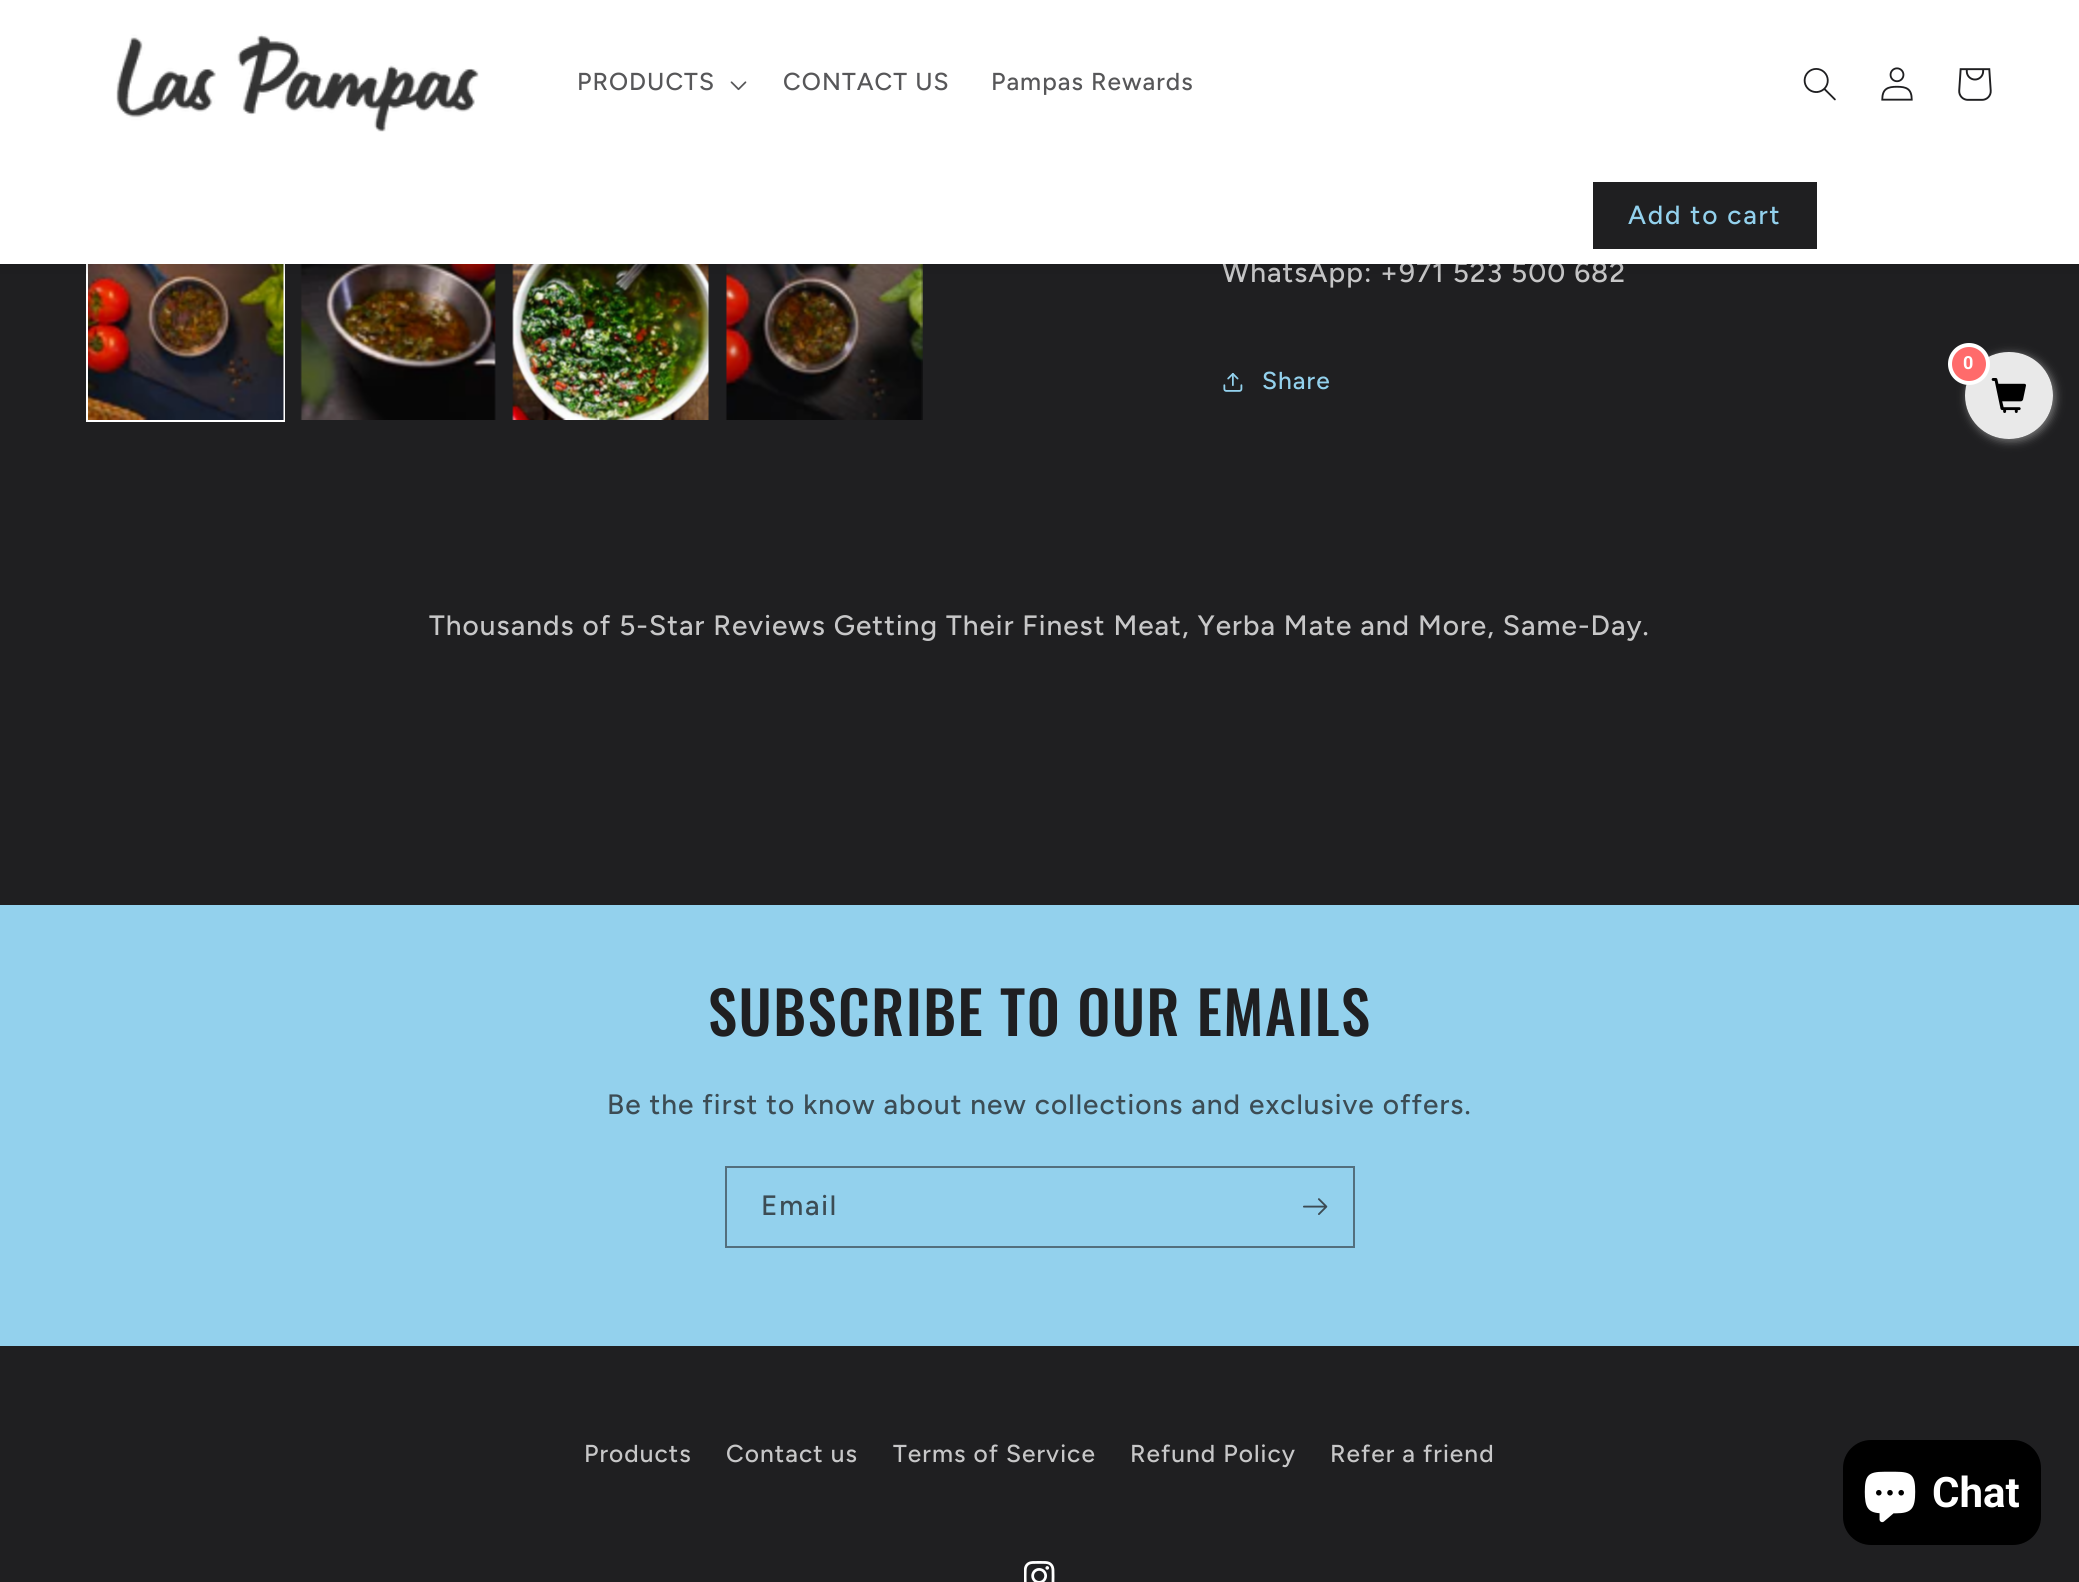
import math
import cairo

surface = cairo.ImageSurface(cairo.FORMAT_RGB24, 2079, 1582)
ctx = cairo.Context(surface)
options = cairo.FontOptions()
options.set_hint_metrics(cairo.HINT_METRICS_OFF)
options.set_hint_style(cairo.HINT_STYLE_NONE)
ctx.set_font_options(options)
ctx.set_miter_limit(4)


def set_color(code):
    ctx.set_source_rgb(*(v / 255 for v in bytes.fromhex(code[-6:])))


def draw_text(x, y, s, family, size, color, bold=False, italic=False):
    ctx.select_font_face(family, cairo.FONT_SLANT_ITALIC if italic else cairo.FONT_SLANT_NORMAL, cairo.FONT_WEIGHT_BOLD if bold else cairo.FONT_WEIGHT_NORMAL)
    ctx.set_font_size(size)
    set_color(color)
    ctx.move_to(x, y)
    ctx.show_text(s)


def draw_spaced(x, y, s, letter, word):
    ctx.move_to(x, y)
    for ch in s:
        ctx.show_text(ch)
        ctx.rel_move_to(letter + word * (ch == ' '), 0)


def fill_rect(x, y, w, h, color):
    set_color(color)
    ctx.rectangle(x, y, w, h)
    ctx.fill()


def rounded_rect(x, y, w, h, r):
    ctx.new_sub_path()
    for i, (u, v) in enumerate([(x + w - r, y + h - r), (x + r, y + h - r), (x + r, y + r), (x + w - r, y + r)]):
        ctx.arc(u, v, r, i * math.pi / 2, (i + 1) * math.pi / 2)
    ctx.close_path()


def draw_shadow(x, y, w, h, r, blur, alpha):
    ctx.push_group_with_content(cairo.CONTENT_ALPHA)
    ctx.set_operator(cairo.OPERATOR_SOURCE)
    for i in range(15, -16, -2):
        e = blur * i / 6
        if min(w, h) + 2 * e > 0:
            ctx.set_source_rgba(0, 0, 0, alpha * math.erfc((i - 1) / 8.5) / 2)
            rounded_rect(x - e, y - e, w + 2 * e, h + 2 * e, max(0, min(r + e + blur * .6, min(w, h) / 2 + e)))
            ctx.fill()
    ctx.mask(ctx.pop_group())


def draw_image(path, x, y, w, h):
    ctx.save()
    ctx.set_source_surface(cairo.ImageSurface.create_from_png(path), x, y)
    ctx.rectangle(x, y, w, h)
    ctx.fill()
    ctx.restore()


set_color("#1f1f21")
ctx.paint()
ctx.rectangle(87, 223, 197, 198)
set_color("#ffffff")
ctx.stroke()
ctx.select_font_face("Figtree Medium")
ctx.set_font_size(28)
set_color("#c7c7c8")
draw_spaced(1222, 282, "WhatsApp: +971 523 500 682", 1.05, 0)
fill_rect(0, 0, 2079, 264, "#ffffff")
draw_image("assets/img1.png", 116, 34, 363, 98)
ctx.set_font_size(24.5)
set_color("#575759")
draw_spaced(577, 90, "PRODUCTS", 1.05, 0)
draw_image("assets/img2.png", 730, 81, 17, 10)
draw_spaced(783, 90, "CONTACT US", 1.05, 0)
draw_spaced(991, 90, "Pampas Rewards", 1.05, 0)
draw_image("assets/img3.png", 1803, 68, 33, 33)
draw_image("assets/img4.png", 1881, 67, 32, 34)
draw_image("assets/img5.png", 1958, 68, 34, 33)
fill_rect(1593, 182, 224, 67, "#1f1f21")
ctx.set_font_size(26.25)
set_color("#93d1ed")
draw_spaced(1628, 224, "Add to cart", 1.75, 0)
draw_image("assets/img6.png", 88, 264, 196, 156)
draw_image("assets/img7.png", 300, 264, 196, 156)
draw_image("assets/img8.png", 512, 264, 198, 156)
draw_image("assets/img9.png", 725, 264, 198, 156)
gradient = cairo.LinearGradient(1040, 264, 1040, 277)
gradient.add_color_stop_rgba(0, 0, 0, 0, 0.09)
gradient.add_color_stop_rgba(1, 0, 0, 0, 0)
ctx.set_source(gradient)
ctx.rectangle(0, 264, 2079, 10)
ctx.fill()
draw_image("assets/img10.png", 1223, 373, 20, 19)
ctx.set_font_size(24.5)
set_color("#93d1ed")
draw_spaced(1262, 389, "Share", 1.05, 0)
ctx.set_font_size(28)
set_color("#c7c7c8")
draw_spaced(429, 635, "Thousands of 5-Star Reviews Getting Their Finest Meat, Yerba Mate and More, Same-Day.", 1.05, 0)
ctx.save()
ctx.set_fill_rule(cairo.FILL_RULE_EVEN_ODD)
ctx.new_path()
ctx.move_to(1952, 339)
ctx.line_to(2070, 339)
ctx.line_to(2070, 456)
ctx.line_to(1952, 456)
ctx.close_path()
ctx.move_to(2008.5, 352)
ctx.line_to(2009.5, 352)
ctx.curve_to(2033.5, 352, 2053, 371.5, 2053, 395.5)
ctx.curve_to(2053, 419.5, 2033.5, 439, 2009.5, 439)
ctx.line_to(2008.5, 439)
ctx.curve_to(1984.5, 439, 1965, 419.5, 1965, 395.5)
ctx.curve_to(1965, 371.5, 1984.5, 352, 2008.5, 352)
ctx.close_path()
ctx.clip()
set_color("#808080")
draw_shadow(1967, 354, 88, 87, 43.5, 4.5, 1)
ctx.restore()
ctx.set_source_rgba(1, 1, 1, 0.9)
rounded_rect(1965, 352, 88, 87, 43.5)
ctx.fill()
set_color("#ff6b6b")
ctx.arc(1969, 364, 19, 0, 2 * math.pi)
ctx.fill_preserve()
set_color("#ffffff")
ctx.set_line_width(4)
ctx.stroke()
ctx.select_font_face("Roboto", cairo.FONT_SLANT_NORMAL, cairo.FONT_WEIGHT_BOLD)
ctx.set_font_size(18)
draw_spaced(1963, 369, "0", 1.05, 0)
draw_image("assets/img11.png", 1991, 378, 35, 35)
fill_rect(0, 905, 2079, 441, "#93d1ed")
ctx.select_font_face("Oswald Medium")
ctx.set_font_size(58.75)
set_color("#1f1f21")
draw_spaced(708, 1036, "SUBSCRIBE TO OUR EMAILS", 1.5, 0)
ctx.select_font_face("Figtree Medium")
ctx.set_font_size(28)
set_color("#3c4c54")
draw_spaced(607, 1114, "Be the first to know about new collections and exclusive offers.", 1.05, 0)
ctx.rectangle(726, 1167, 628, 80)
set_color("#536f7d")
ctx.set_line_width(2)
ctx.stroke()
set_color("#3c4c54")
draw_spaced(761, 1215, "Email", 1.75, 0)
draw_image("assets/img12.png", 1303, 1198, 25, 17)
ctx.set_font_size(24.5)
set_color("#c7c7c8")
draw_spaced(584, 1462, "Products", 1.05, 0)
draw_spaced(726, 1462, "Contact us", 1.05, 0)
draw_spaced(893, 1462, "Terms of Service", 1.05, 0)
draw_spaced(1130, 1462, "Refund Policy", 1.05, 0)
draw_spaced(1330, 1462, "Refer a friend", 1.05, 0)
draw_image("assets/img13.png", 1024, 1561, 31, 21)
set_color("#000000")
rounded_rect(1843, 1440, 198, 105, 28)
ctx.fill()
draw_image("assets/img14.png", 1864, 1471, 52, 52)
draw_text(1932, 1507, "Chat", "Roboto", 42, "#ffffff", bold=True)
surface.write_to_png("output.png")
